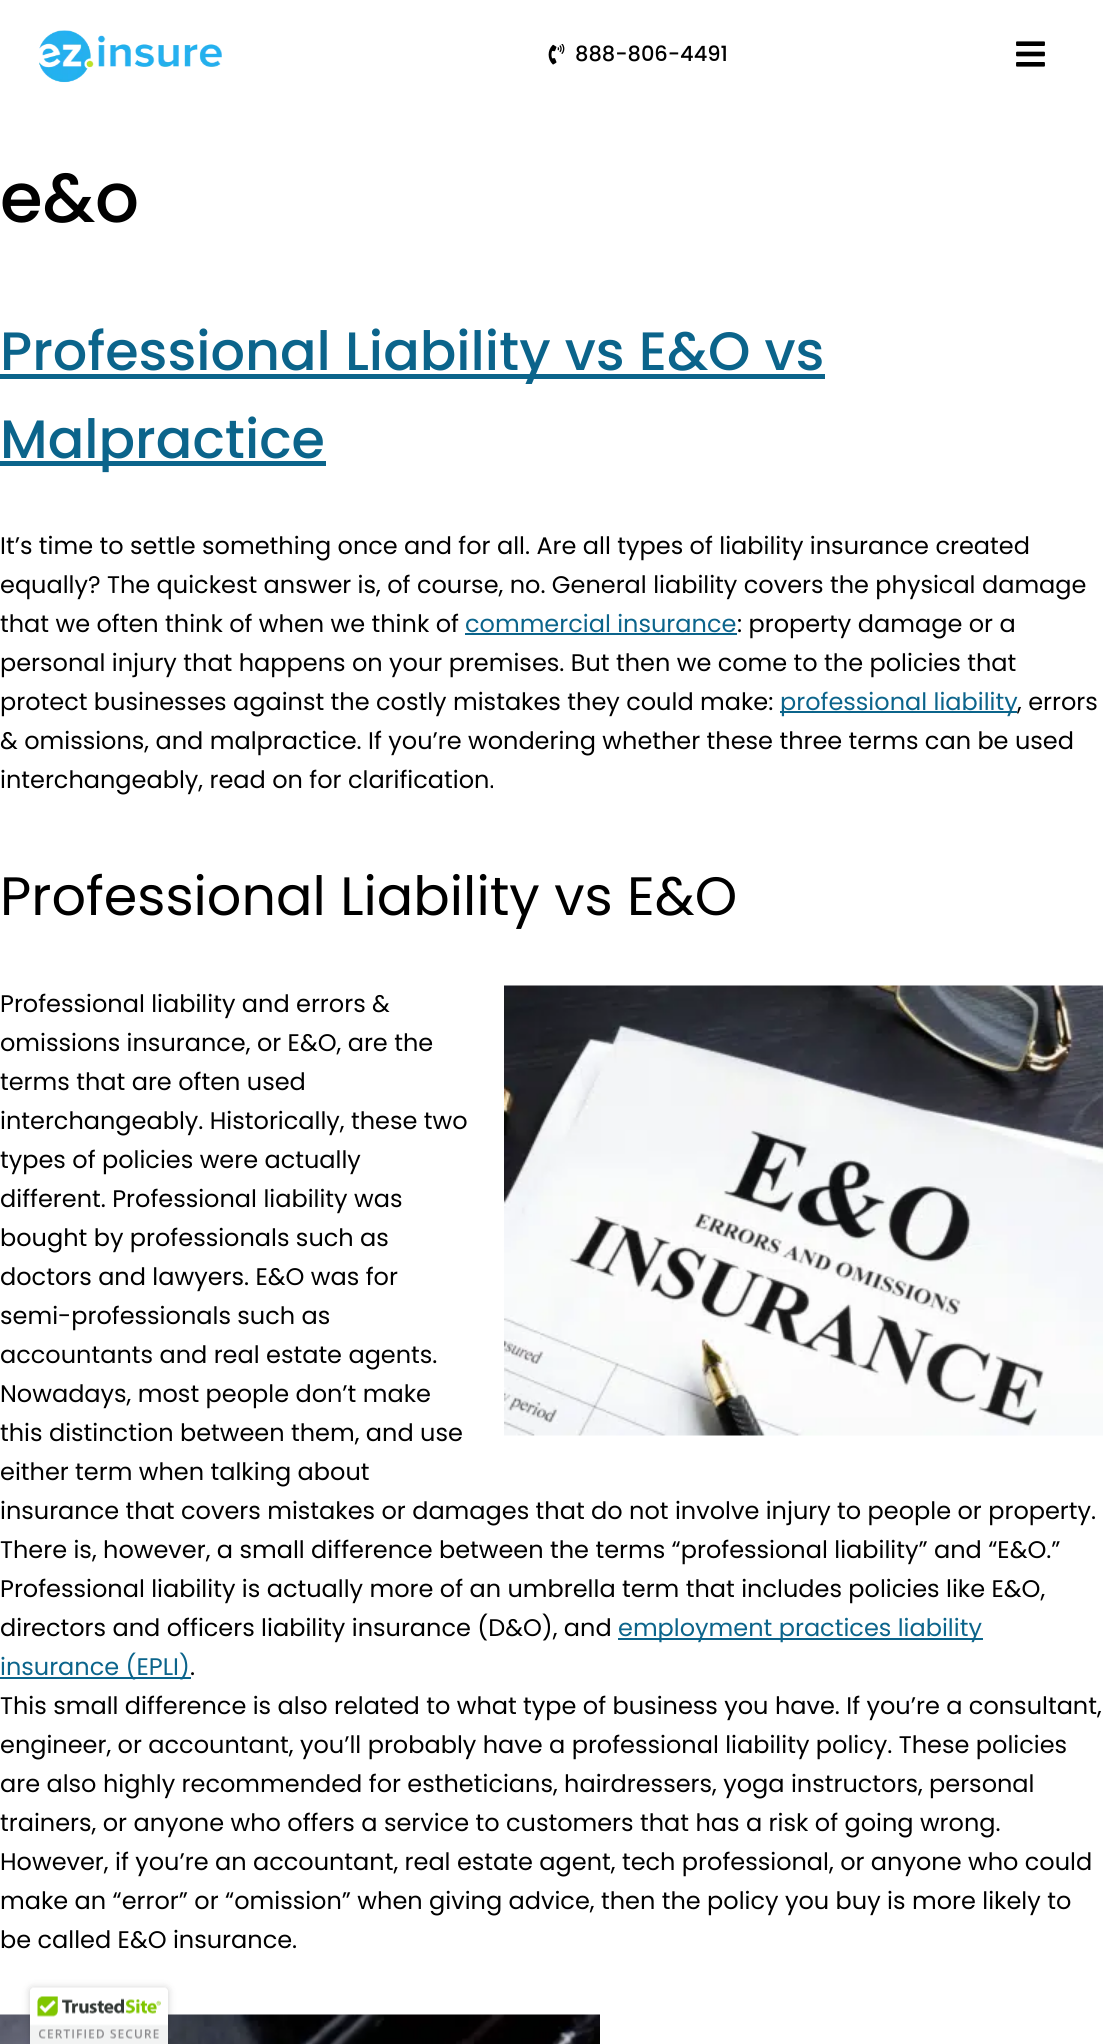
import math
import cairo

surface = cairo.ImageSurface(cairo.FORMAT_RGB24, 1103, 2044)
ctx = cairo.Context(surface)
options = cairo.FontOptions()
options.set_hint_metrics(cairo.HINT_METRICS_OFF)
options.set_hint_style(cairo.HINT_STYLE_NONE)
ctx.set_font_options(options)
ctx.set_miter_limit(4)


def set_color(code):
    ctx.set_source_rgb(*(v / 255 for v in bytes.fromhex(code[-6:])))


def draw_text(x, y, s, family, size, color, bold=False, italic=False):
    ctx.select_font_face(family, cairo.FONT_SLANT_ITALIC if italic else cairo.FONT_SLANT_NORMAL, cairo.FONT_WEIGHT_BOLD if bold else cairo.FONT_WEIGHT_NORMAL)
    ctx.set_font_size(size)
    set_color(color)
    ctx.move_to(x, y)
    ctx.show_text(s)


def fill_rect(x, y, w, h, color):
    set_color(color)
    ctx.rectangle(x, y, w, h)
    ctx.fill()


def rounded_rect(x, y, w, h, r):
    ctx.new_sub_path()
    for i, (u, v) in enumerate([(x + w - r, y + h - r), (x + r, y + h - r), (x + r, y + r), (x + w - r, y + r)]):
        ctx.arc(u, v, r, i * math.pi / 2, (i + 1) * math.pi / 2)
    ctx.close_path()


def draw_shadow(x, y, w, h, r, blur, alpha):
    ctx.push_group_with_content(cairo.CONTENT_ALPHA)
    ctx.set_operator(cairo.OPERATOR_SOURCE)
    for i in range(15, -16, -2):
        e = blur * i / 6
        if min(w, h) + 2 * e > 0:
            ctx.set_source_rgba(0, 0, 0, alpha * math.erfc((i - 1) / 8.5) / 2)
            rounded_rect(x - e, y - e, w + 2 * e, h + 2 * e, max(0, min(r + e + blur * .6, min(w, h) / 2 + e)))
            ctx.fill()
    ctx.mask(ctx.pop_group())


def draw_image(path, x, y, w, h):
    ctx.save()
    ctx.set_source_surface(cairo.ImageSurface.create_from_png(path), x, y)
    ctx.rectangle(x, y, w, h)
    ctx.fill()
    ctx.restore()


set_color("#ffffff")
ctx.paint()
draw_image("assets/img1.png", 39, 30, 183, 53)
draw_image("assets/img2.png", 548, 44, 17, 21)
draw_text(575, 61, "888-806-4491", "Poppins Medium", 21, "#000000")
draw_image("assets/img3.png", 1016, 41, 29, 26)
draw_text(0, 222, "e&o", "Poppins Medium", 69, "#000000")
fill_rect(0, 374, 825, 5, "#0b648b")
draw_text(0, 370, "Professional Liability vs E&O vs", "Poppins Medium", 54, "#0b648b")
fill_rect(0, 461, 326, 5, "#0b648b")
draw_text(0, 458, "Malpractice", "Poppins Medium", 54, "#0b648b")
draw_text(0, 554, "It’s time to settle something once and for all. Are all types of liability insurance created", "Poppins", 24, "#000000")
draw_text(0, 593, "equally? The quickest answer is, of course, no. General liability covers the physical damage", "Poppins", 24, "#000000")
draw_text(0, 632, "that we often think of when we think of", "Poppins", 24, "#000000")
draw_text(465, 632, "commercial insurance", "Poppins", 24, "#0b648b")
fill_rect(465, 633, 272, 2, "#0b648b")
draw_text(737, 632, ": property damage or a", "Poppins", 24, "#000000")
draw_text(0, 671, "personal injury that happens on your premises. But then we come to the policies that", "Poppins", 24, "#000000")
draw_text(0, 710, "protect businesses against the costly mistakes they could make:", "Poppins", 24, "#000000")
fill_rect(780, 711, 237, 2, "#0b648b")
draw_text(780, 710, "professional liability", "Poppins", 24, "#0b648b")
draw_text(1017, 710, ", errors", "Poppins", 24, "#000000")
draw_text(0, 749, "& omissions, and malpractice. If you’re wondering whether these three terms can be used", "Poppins", 24, "#000000")
draw_text(0, 788, "interchangeably, read on for clarification.", "Poppins", 24, "#000000")
draw_text(0, 915, "Professional Liability vs E&O", "Poppins", 54, "#000000")
draw_image("assets/img4.png", 504, 985, 599, 451)
draw_text(0, 1012, "Professional liability and errors &", "Poppins", 24, "#000000")
draw_text(0, 1051, "omissions insurance, or E&O, are the", "Poppins", 24, "#000000")
draw_text(0, 1090, "terms that are often used", "Poppins", 24, "#000000")
draw_text(0, 1129, "interchangeably. Historically, these two", "Poppins", 24, "#000000")
draw_text(0, 1168, "types of policies were actually", "Poppins", 24, "#000000")
draw_text(0, 1207, "different. Professional liability was", "Poppins", 24, "#000000")
draw_text(0, 1246, "bought by professionals such as", "Poppins", 24, "#000000")
draw_text(0, 1285, "doctors and lawyers. E&O was for", "Poppins", 24, "#000000")
draw_text(0, 1324, "semi-professionals such as", "Poppins", 24, "#000000")
draw_text(0, 1363, "accountants and real estate agents.", "Poppins", 24, "#000000")
draw_text(0, 1402, "Nowadays, most people don’t make", "Poppins", 24, "#000000")
draw_text(0, 1441, "this distinction between them, and use", "Poppins", 24, "#000000")
draw_text(0, 1480, "either term when talking about", "Poppins", 24, "#000000")
draw_text(0, 1519, "insurance that covers mistakes or damages that do not involve injury to people or property.", "Poppins", 24, "#000000")
draw_text(0, 1558, "There is, however, a small difference between the terms “professional liability” and “E&O.”", "Poppins", 24, "#000000")
draw_text(0, 1597, "Professional liability is actually more of an umbrella term that includes policies like E&O,", "Poppins", 24, "#000000")
draw_text(0, 1636, "directors and officers liability insurance (D&O), and", "Poppins", 24, "#000000")
fill_rect(618, 1638, 365, 2, "#0b648b")
draw_text(618, 1636, "employment practices liability", "Poppins", 24, "#0b648b")
fill_rect(0, 1677, 191, 2, "#0b648b")
draw_text(0, 1675, "insurance (EPLI)", "Poppins", 24, "#0b648b")
draw_text(190, 1675, ".", "Poppins", 24, "#000000")
draw_text(0, 1714, "This small difference is also related to what type of business you have. If you’re a consultant,", "Poppins", 24, "#000000")
draw_text(0, 1753, "engineer, or accountant, you’ll probably have a professional liability policy. These policies", "Poppins", 24, "#000000")
draw_text(0, 1792, "are also highly recommended for estheticians, hairdressers, yoga instructors, personal", "Poppins", 24, "#000000")
draw_text(0, 1831, "trainers, or anyone who offers a service to customers that has a risk of going wrong.", "Poppins", 24, "#000000")
draw_text(0, 1870, "However, if you’re an accountant, real estate agent, tech professional, or anyone who could", "Poppins", 24, "#000000")
draw_text(0, 1909, "make an “error” or “omission” when giving advice, then the policy you buy is more likely to", "Poppins", 24, "#000000")
draw_text(0, 1948, "be called E&O insurance.", "Poppins", 24, "#000000")
draw_image("assets/img5.png", 0, 2014, 600, 30)
set_color("#000000")
draw_shadow(30, 1988, 138, 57, 3, 4, 0.2)
draw_image("assets/img6.png", 30, 1987, 138, 57)
surface.write_to_png("output.png")
